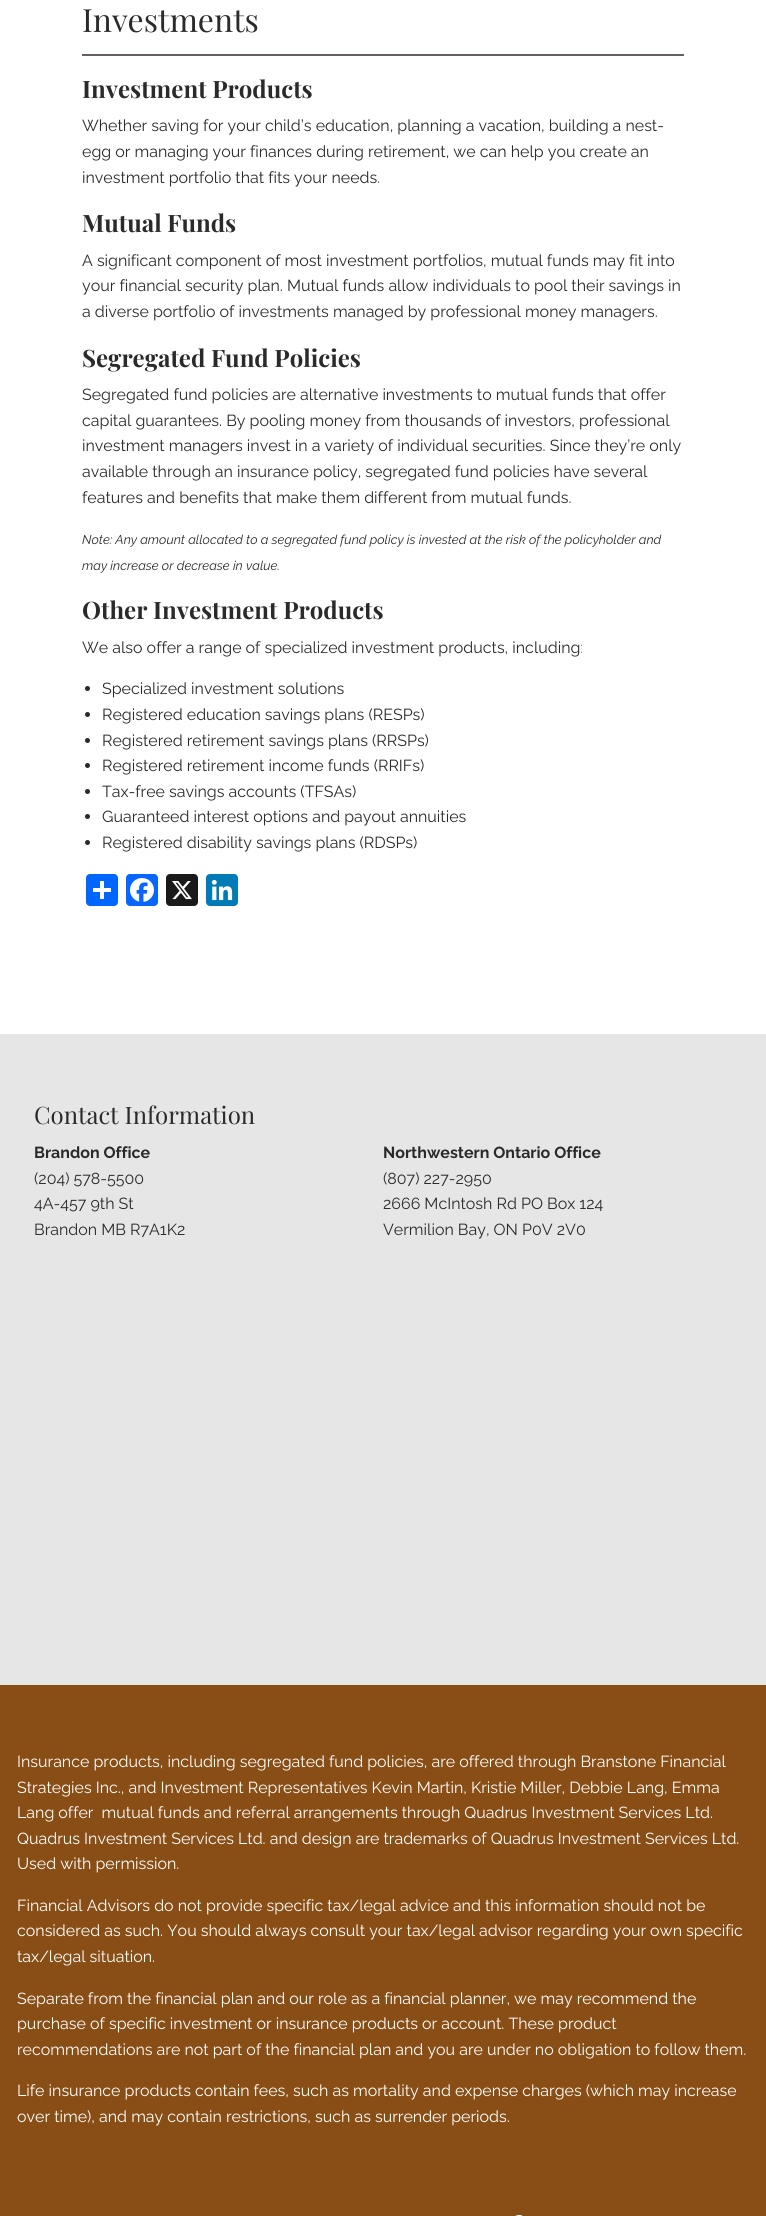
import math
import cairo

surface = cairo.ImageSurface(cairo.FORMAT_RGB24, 766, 2216)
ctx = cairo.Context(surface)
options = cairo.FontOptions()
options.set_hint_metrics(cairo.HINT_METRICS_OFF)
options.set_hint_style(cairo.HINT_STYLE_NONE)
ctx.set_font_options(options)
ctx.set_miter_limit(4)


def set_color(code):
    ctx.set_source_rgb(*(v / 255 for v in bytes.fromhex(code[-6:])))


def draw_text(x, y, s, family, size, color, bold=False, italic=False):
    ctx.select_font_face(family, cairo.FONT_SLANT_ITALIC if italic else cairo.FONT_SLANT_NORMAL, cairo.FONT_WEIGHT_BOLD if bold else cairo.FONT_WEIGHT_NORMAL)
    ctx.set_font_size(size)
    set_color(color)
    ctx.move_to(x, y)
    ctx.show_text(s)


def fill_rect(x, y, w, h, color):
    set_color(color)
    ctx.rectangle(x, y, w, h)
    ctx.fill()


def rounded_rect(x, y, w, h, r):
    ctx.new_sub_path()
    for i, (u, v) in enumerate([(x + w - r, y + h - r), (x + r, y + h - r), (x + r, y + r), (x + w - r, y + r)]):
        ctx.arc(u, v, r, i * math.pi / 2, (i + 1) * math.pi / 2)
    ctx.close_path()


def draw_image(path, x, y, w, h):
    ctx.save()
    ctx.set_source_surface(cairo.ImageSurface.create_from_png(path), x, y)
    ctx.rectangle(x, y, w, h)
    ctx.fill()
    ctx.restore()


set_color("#ffffff")
ctx.paint()
fill_rect(82, 54, 602, 2, "#666064")
draw_text(82, 32, "Investments", "Playfair Display", 32, "#2a2a2a")
draw_text(82, 98, "Investment Products", "Playfair Display", 24, "#2a2a2a", bold=True)
draw_text(82, 131, "Whether saving for your child’s education, planning a vacation, building a nest-", "Raleway Thin", 16, "#2a2a2a")
draw_text(82, 157, "egg or managing your finances during retirement, we can help you create an", "Raleway Thin", 16, "#2a2a2a")
draw_text(82, 183, "investment portfolio that fits your needs.", "Raleway Thin", 16, "#2a2a2a")
draw_text(82, 232, "Mutual Funds", "Playfair Display", 24, "#2a2a2a", bold=True)
draw_text(82, 266, "A significant component of most investment portfolios, mutual funds may fit into", "Raleway Thin", 16, "#2a2a2a")
draw_text(82, 291, "your financial security plan. Mutual funds allow individuals to pool their savings in", "Raleway Thin", 16, "#2a2a2a")
draw_text(82, 317, "a diverse portfolio of investments managed by professional money managers.", "Raleway Thin", 16, "#2a2a2a")
draw_text(82, 367, "Segregated Fund Policies", "Playfair Display", 24, "#2a2a2a", bold=True)
draw_text(82, 400, "Segregated fund policies are alternative investments to mutual funds that offer", "Raleway Thin", 16, "#2a2a2a")
draw_text(82, 426, "capital guarantees. By pooling money from thousands of investors, professional", "Raleway Thin", 16, "#2a2a2a")
draw_text(82, 451, "investment managers invest in a variety of individual securities. Since they’re only", "Raleway Thin", 16, "#2a2a2a")
draw_text(82, 477, "available through an insurance policy, segregated fund policies have several", "Raleway Thin", 16, "#2a2a2a")
draw_text(82, 503, "features and benefits that make them different from mutual funds.", "Raleway Thin", 16, "#2a2a2a")
draw_text(82, 544, "Note: Any amount allocated to a segregated fund policy is invested at the risk of the policyholder and", "Raleway Thin", 12.8, "#2a2a2a", italic=True)
draw_text(82, 570, "may increase or decrease in value.", "Raleway Thin", 12.8, "#2a2a2a", italic=True)
draw_text(82, 619, "Other Investment Products", "Playfair Display", 24, "#2a2a2a", bold=True)
draw_text(82, 653, "We also offer a range of specialized investment products, including:", "Raleway Thin", 16, "#2a2a2a")
ctx.new_path()
ctx.arc(87.5, 688.5, 2.5, 0, 2 * math.pi)
ctx.fill()
draw_text(102, 694, "Specialized investment solutions", "Raleway Thin", 16, "#2a2a2a")
ctx.new_path()
ctx.arc(87.5, 714.5, 2.5, 0, 2 * math.pi)
ctx.fill()
draw_text(102, 720, "Registered education savings plans (RESPs)", "Raleway Thin", 16, "#2a2a2a")
ctx.new_path()
ctx.arc(87.5, 740.5, 2.5, 0, 2 * math.pi)
ctx.fill()
draw_text(102, 746, "Registered retirement savings plans (RRSPs)", "Raleway Thin", 16, "#2a2a2a")
ctx.new_path()
ctx.arc(87.5, 765.5, 2.5, 0, 2 * math.pi)
ctx.fill()
draw_text(102, 771, "Registered retirement income funds (RRIFs)", "Raleway Thin", 16, "#2a2a2a")
ctx.new_path()
ctx.arc(87.5, 791.5, 2.5, 0, 2 * math.pi)
ctx.fill()
draw_text(102, 797, "Tax-free savings accounts (TFSAs)", "Raleway Thin", 16, "#2a2a2a")
ctx.new_path()
ctx.arc(87.5, 816.5, 2.5, 0, 2 * math.pi)
ctx.fill()
draw_text(102, 822, "Guaranteed interest options and payout annuities", "Raleway Thin", 16, "#2a2a2a")
ctx.new_path()
ctx.arc(87.5, 842.5, 2.5, 0, 2 * math.pi)
ctx.fill()
draw_text(102, 848, "Registered disability savings plans (RDSPs)", "Raleway Thin", 16, "#2a2a2a")
set_color("#0166ff")
rounded_rect(86, 874, 32, 32, 4)
ctx.fill()
fill_rect(100, 881, 4, 18, "#ffffff")
fill_rect(93, 888, 18, 4, "#ffffff")
set_color("#0866ff")
rounded_rect(126, 874, 32, 32, 4)
ctx.fill()
draw_image("assets/img1.png", 130, 878, 24, 24)
set_color("#1a1a1a")
rounded_rect(166, 874, 32, 32, 4)
ctx.fill()
draw_image("assets/img2.png", 172, 881, 20, 19)
set_color("#007bb5")
rounded_rect(206, 874, 32, 32, 4)
ctx.fill()
draw_image("assets/img3.png", 211, 879, 22, 22)
fill_rect(0, 1034, 766, 651, "#e6e6e6")
draw_text(34, 1124, "Contact Information", "Playfair Display", 24, "#2a2a2a")
draw_text(34, 1158, "Brandon Office", "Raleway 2 Thin", 16, "#2a2a2a")
draw_text(34, 1184, "(204) 578-5500", "Raleway Thin", 16, "#2a2a2a")
draw_text(34, 1209, "4A-457 9th St", "Raleway Thin", 16, "#2a2a2a")
draw_text(34, 1235, "Brandon MB R7A1K2", "Raleway Thin", 16, "#2a2a2a")
draw_text(383, 1158, "Northwestern Ontario Office", "Raleway 2 Thin", 16, "#2a2a2a")
draw_text(383, 1184, "(807) 227-2950", "Raleway Thin", 16, "#2a2a2a")
draw_text(383, 1209, "2666 McIntosh Rd PO Box 124", "Raleway Thin", 16, "#2a2a2a")
draw_text(383, 1235, "Vermilion Bay, ON P0V 2V0", "Raleway Thin", 16, "#2a2a2a")
fill_rect(0, 1685, 766, 531, "#884e16")
draw_text(17, 1767, "Insurance products, including segregated fund policies, are offered through Branstone Financial", "Raleway Thin", 16, "#ffffff")
draw_text(17, 1793, "Strategies Inc., and Investment Representatives Kevin Martin, Kristie Miller, Debbie Lang, Emma", "Raleway Thin", 16, "#ffffff")
draw_text(17, 1818, "Lang offer  mutual funds and referral arrangements through Quadrus Investment Services Ltd.", "Raleway Thin", 16, "#ffffff")
draw_text(17, 1844, "Quadrus Investment Services Ltd. and design are trademarks of Quadrus Investment Services Ltd.", "Raleway Thin", 16, "#ffffff")
draw_text(17, 1869, "Used with permission.", "Raleway Thin", 16, "#ffffff")
draw_text(17, 1911, "Financial Advisors do not provide specific tax/legal advice and this information should not be", "Raleway Thin", 16, "#ffffff")
draw_text(17, 1936, "considered as such. You should always consult your tax/legal advisor regarding your own specific", "Raleway Thin", 16, "#ffffff")
draw_text(17, 1962, "tax/legal situation.", "Raleway Thin", 16, "#ffffff")
draw_text(17, 2004, "Separate from the financial plan and our role as a financial planner, we may recommend the", "Raleway Thin", 16, "#ffffff")
draw_text(17, 2029, "purchase of specific investment or insurance products or account. These product", "Raleway Thin", 16, "#ffffff")
draw_text(17, 2055, "recommendations are not part of the financial plan and you are under no obligation to follow them.", "Raleway Thin", 16, "#ffffff")
draw_text(17, 2096, "Life insurance products contain fees, such as mortality and expense charges (which may increase", "Raleway Thin", 16, "#ffffff")
draw_text(17, 2122, "over time), and may contain restrictions, such as surrender periods.", "Raleway Thin", 16, "#ffffff")
draw_image("assets/img4.png", 515, 2215, 8, 1)
surface.write_to_png("output.png")
